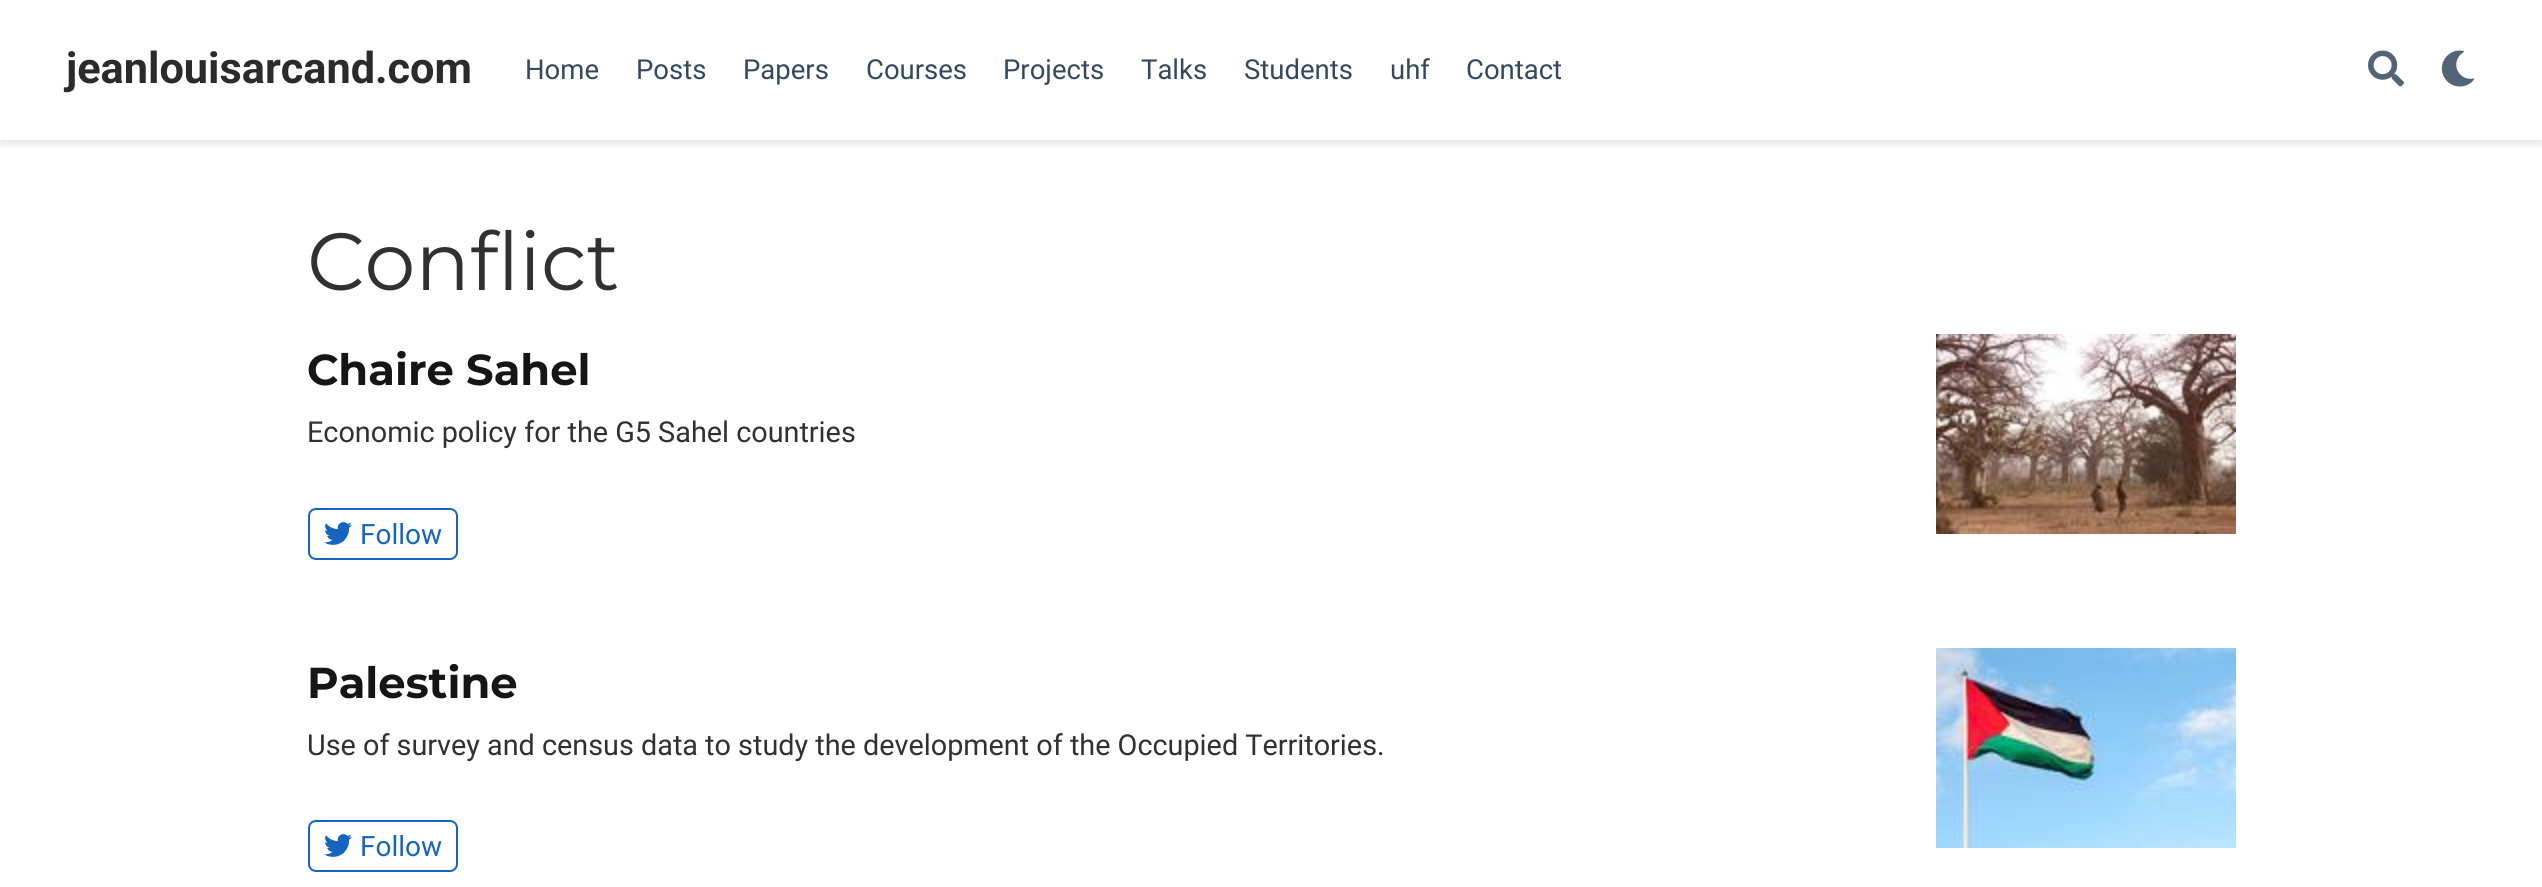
import math
import cairo

surface = cairo.ImageSurface(cairo.FORMAT_RGB24, 2542, 887)
ctx = cairo.Context(surface)
options = cairo.FontOptions()
options.set_hint_metrics(cairo.HINT_METRICS_OFF)
options.set_hint_style(cairo.HINT_STYLE_NONE)
ctx.set_font_options(options)
ctx.set_miter_limit(4)


def set_color(code):
    ctx.set_source_rgb(*(v / 255 for v in bytes.fromhex(code[-6:])))


def draw_text(x, y, s, family, size, color, bold=False, italic=False):
    ctx.select_font_face(family, cairo.FONT_SLANT_ITALIC if italic else cairo.FONT_SLANT_NORMAL, cairo.FONT_WEIGHT_BOLD if bold else cairo.FONT_WEIGHT_NORMAL)
    ctx.set_font_size(size)
    set_color(color)
    ctx.move_to(x, y)
    ctx.show_text(s)


def rounded_rect(x, y, w, h, r):
    ctx.new_sub_path()
    for i, (u, v) in enumerate([(x + w - r, y + h - r), (x + r, y + h - r), (x + r, y + r), (x + w - r, y + r)]):
        ctx.arc(u, v, r, i * math.pi / 2, (i + 1) * math.pi / 2)
    ctx.close_path()


def draw_shadow(x, y, w, h, r, blur, alpha):
    ctx.push_group_with_content(cairo.CONTENT_ALPHA)
    ctx.set_operator(cairo.OPERATOR_SOURCE)
    for i in range(15, -16, -2):
        e = blur * i / 6
        if min(w, h) + 2 * e > 0:
            ctx.set_source_rgba(0, 0, 0, alpha * math.erfc((i - 1) / 8.5) / 2)
            rounded_rect(x - e, y - e, w + 2 * e, h + 2 * e, max(0, min(r + e + blur * .6, min(w, h) / 2 + e)))
            ctx.fill()
    ctx.mask(ctx.pop_group())


def draw_image(path, x, y, w, h):
    ctx.save()
    ctx.set_source_surface(cairo.ImageSurface.create_from_png(path), x, y)
    ctx.rectangle(x, y, w, h)
    ctx.fill()
    ctx.restore()


set_color("#ffffff")
ctx.paint()
ctx.save()
ctx.rectangle(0, 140, 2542, 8)
ctx.clip()
set_color("#000000")
draw_shadow(0, 4, 2542, 140, 0, 4.5, 0.11)
ctx.restore()
draw_text(66, 83, "jeanlouisarcand.com", "Roboto", 43.25, "#2b2b2b", bold=True)
draw_text(525, 79, "Home", "Roboto", 27.5, "#34495e")
draw_text(636, 79, "Posts", "Roboto", 27.5, "#34495e")
draw_text(743, 79, "Papers", "Roboto", 27.5, "#34495e")
draw_text(866, 79, "Courses", "Roboto", 27.5, "#34495e")
draw_text(1003, 79, "Projects", "Roboto", 27.5, "#34495e")
draw_text(1141, 79, "Talks", "Roboto", 27.5, "#34495e")
draw_text(1244, 79, "Students", "Roboto", 27.5, "#34495e")
draw_text(1390, 79, "uhf", "Roboto", 27.5, "#34495e")
draw_text(1466, 79, "Contact", "Roboto", 27.5, "#34495e")
draw_image("assets/img1.png", 2368, 50, 36, 37)
draw_image("assets/img2.png", 2441, 50, 33, 37)
draw_text(307, 290, "Conflict", "Montserrat", 81, "#313131")
draw_text(307, 385, "Chaire Sahel", "Montserrat", 43.25, "#151515", bold=True)
draw_text(307, 442, "Economic policy for the G5 Sahel countries", "Roboto", 28.8, "#313131")
rounded_rect(309, 509, 148, 50, 7)
set_color("#1565c0")
ctx.stroke()
draw_image("assets/img3.png", 324, 522, 28, 23)
draw_text(360, 544, "Follow", "Roboto", 28, "#1565c0")
draw_image("assets/img4.png", 1936, 334, 300, 200)
draw_text(307, 698, "Palestine", "Montserrat", 43.25, "#151515", bold=True)
draw_text(307, 755, "Use of survey and census data to study the development of the Occupied Territories.", "Roboto", 28.8, "#313131")
rounded_rect(309, 821, 148, 50, 7)
set_color("#1565c0")
ctx.stroke()
draw_image("assets/img3.png", 324, 834, 28, 23)
draw_text(360, 856, "Follow", "Roboto", 28, "#1565c0")
draw_image("assets/img5.png", 1936, 648, 300, 200)
surface.write_to_png("output.png")
